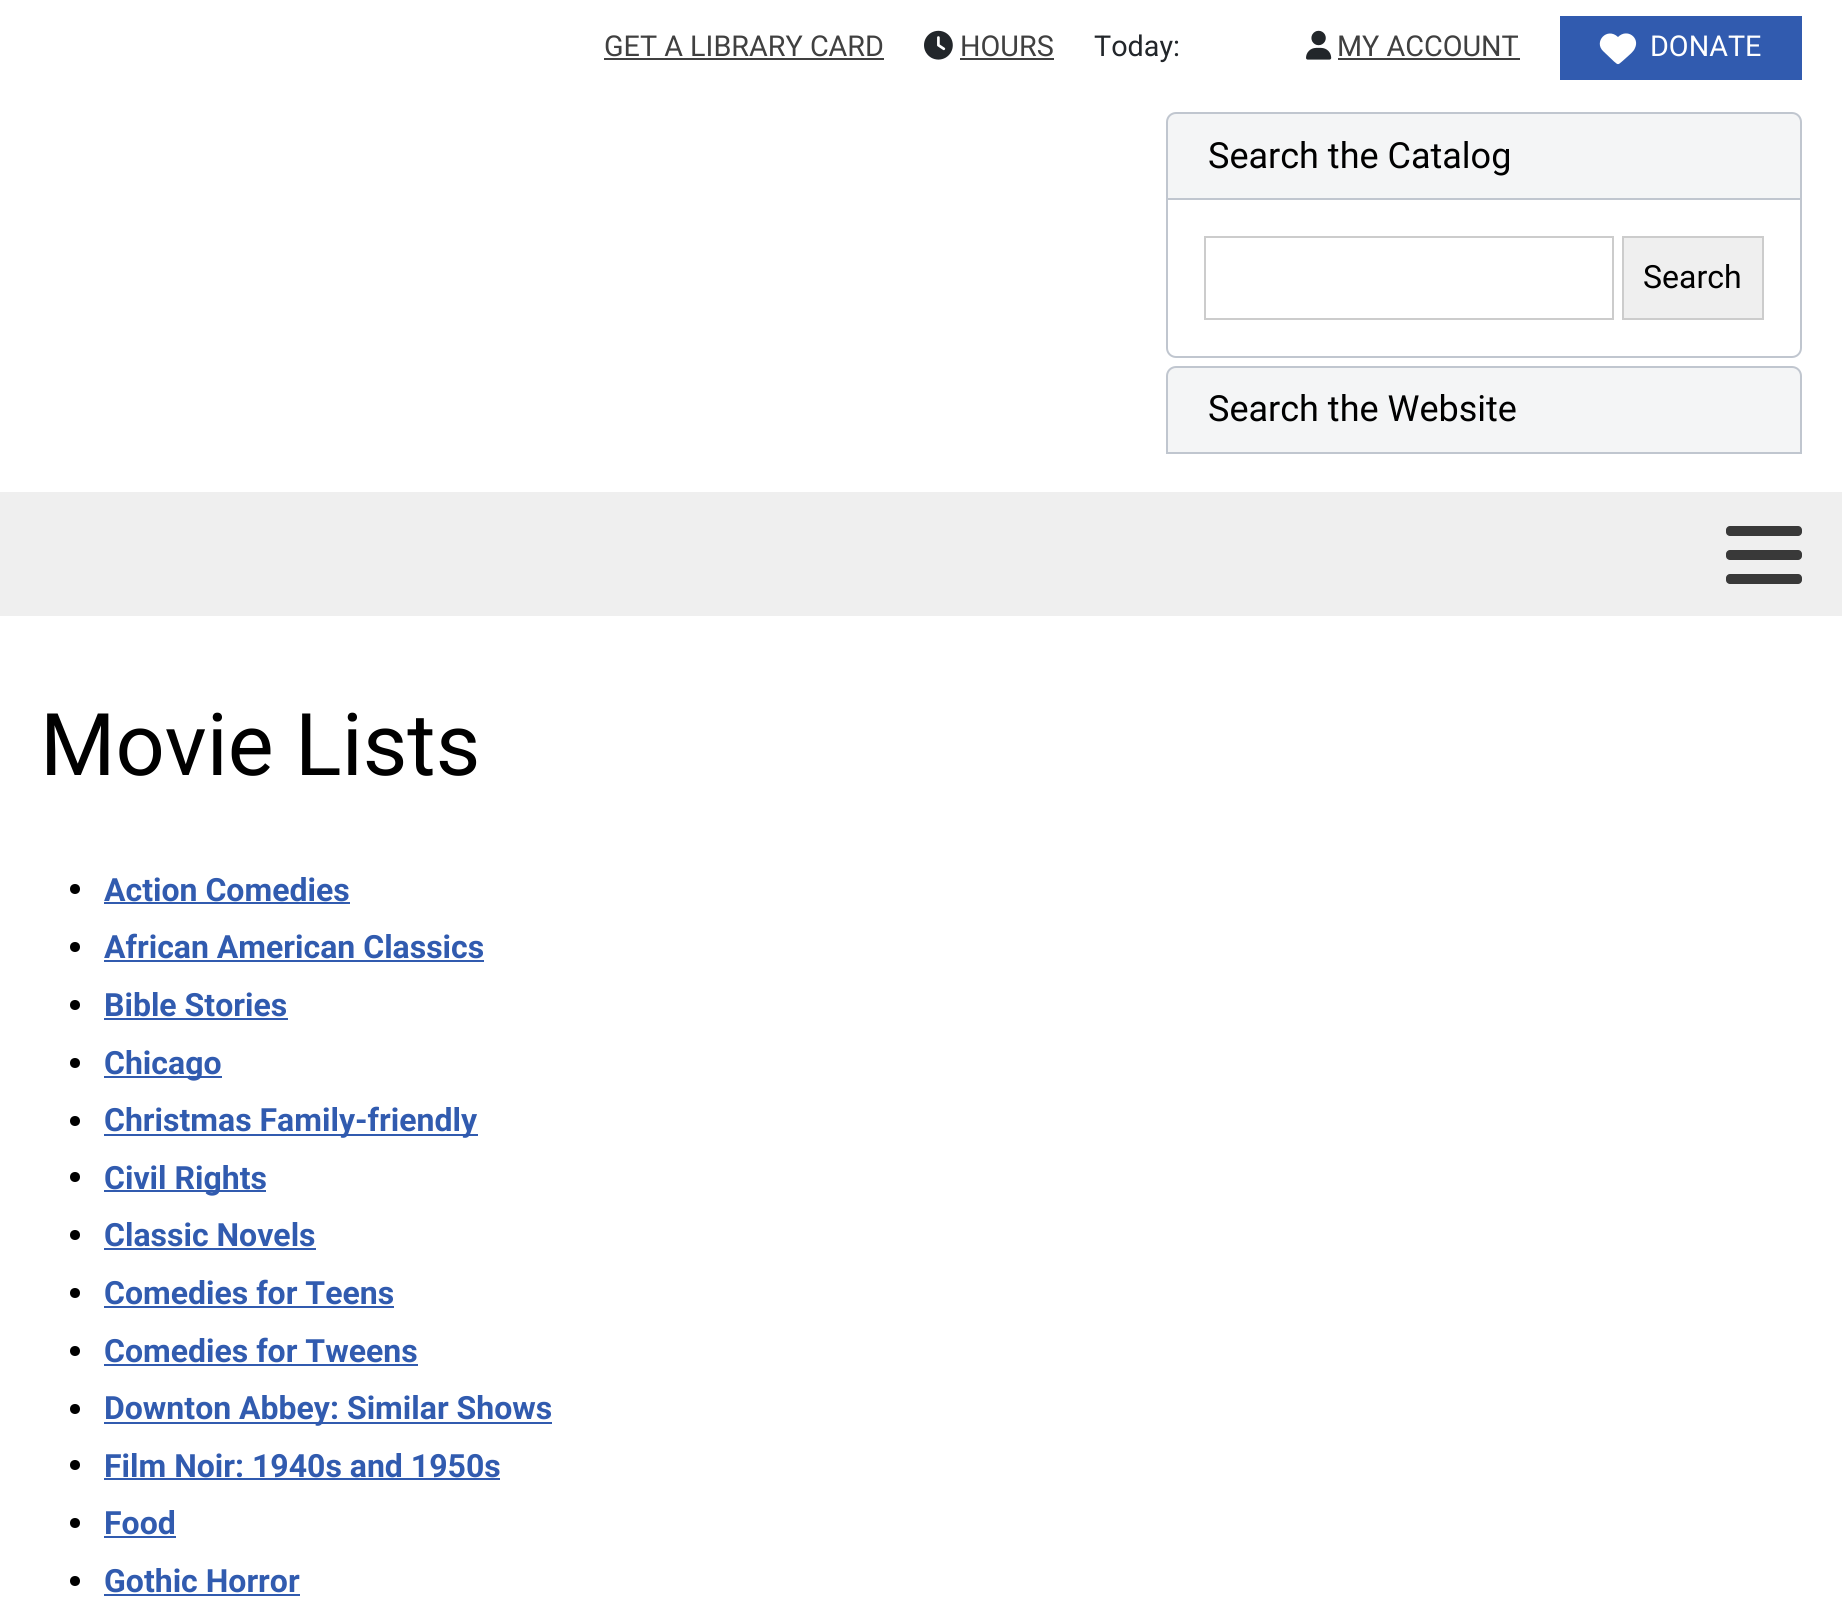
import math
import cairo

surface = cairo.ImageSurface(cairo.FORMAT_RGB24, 1842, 1617)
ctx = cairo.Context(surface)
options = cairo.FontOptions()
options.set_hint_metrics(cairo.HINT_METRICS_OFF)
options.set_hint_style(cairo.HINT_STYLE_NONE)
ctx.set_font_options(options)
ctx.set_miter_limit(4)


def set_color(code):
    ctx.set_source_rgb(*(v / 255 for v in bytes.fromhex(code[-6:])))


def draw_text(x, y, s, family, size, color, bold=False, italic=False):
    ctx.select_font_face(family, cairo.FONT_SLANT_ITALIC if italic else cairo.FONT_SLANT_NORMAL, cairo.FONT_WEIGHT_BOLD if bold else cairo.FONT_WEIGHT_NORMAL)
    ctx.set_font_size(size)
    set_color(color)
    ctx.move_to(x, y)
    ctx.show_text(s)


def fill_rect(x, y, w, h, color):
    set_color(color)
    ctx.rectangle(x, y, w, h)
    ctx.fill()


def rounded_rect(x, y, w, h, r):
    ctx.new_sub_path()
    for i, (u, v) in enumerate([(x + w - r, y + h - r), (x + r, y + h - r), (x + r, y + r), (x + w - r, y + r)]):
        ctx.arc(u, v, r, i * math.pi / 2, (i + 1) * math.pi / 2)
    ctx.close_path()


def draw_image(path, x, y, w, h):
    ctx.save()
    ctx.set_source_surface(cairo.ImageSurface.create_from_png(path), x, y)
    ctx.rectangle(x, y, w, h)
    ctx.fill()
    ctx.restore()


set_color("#ffffff")
ctx.paint()
draw_text(604, 56, "GET A LIBRARY CARD", "Roboto", 28.75, "#404040")
fill_rect(604, 58, 280, 2, "#404040")
draw_image("assets/img1.png", 924, 30, 29, 30)
draw_text(960, 56, "HOURS", "Roboto", 28.75, "#404040")
fill_rect(960, 58, 94, 2, "#404040")
draw_text(1094, 56, "Today:", "Roboto", 28.75, "#22262a")
draw_image("assets/img2.png", 1306, 30, 26, 30)
draw_text(1337, 56, "MY ACCOUNT", "Roboto", 28.75, "#404040")
fill_rect(1338, 58, 182, 2, "#404040")
fill_rect(1560, 16, 242, 64, "#315baf")
set_color("#ffffff")
ctx.new_path()
ctx.move_to(1603.5, 51.5)
ctx.line_to(1616, 63.5)
ctx.line_to(1603.5, 51.5)
ctx.line_to(1614, 61.5)
ctx.curve_to(1618, 65, 1618, 65, 1622, 61.5)
ctx.line_to(1626.5, 57.5)
ctx.curve_to(1629, 55, 1633.5, 52, 1635, 48)
ctx.curve_to(1640, 37.5, 1627, 28, 1618, 37)
ctx.curve_to(1607, 26.5, 1593, 42, 1603.5, 51.5)
ctx.close_path()
ctx.fill()
draw_text(1650, 56, "DONATE", "Roboto", 28.75, "#ffffff")
set_color("#f4f5f6")
ctx.new_path()
ctx.move_to(1176, 113)
ctx.line_to(1792, 113)
ctx.curve_to(1797, 113, 1801, 117, 1801, 122)
ctx.line_to(1801, 199)
ctx.line_to(1167, 199)
ctx.line_to(1167, 122)
ctx.curve_to(1167, 117, 1171, 113, 1176, 113)
ctx.close_path()
ctx.fill_preserve()
set_color("#c0c6cf")
ctx.stroke()
draw_text(1208, 168, "Search the Catalog", "Roboto", 36, "#000000")
ctx.new_path()
ctx.move_to(1167, 199)
ctx.line_to(1801, 199)
ctx.line_to(1801, 348)
ctx.curve_to(1801, 353, 1797, 357, 1792, 357)
ctx.line_to(1176, 357)
ctx.curve_to(1171, 357, 1167, 353, 1167, 348)
ctx.close_path()
set_color("#c0c6cf")
ctx.stroke()
ctx.rectangle(1205, 237, 408, 82)
set_color("#cccccc")
ctx.stroke()
set_color("#efefef")
ctx.rectangle(1623, 237, 140, 82)
ctx.fill_preserve()
set_color("#cccccc")
ctx.stroke()
draw_text(1643, 288, "Search", "Roboto", 32, "#000000")
set_color("#f4f5f6")
ctx.new_path()
ctx.move_to(1176, 367)
ctx.line_to(1792, 367)
ctx.curve_to(1797, 367, 1801, 371, 1801, 376)
ctx.line_to(1801, 453)
ctx.line_to(1167, 453)
ctx.line_to(1167, 376)
ctx.curve_to(1167, 371, 1171, 367, 1176, 367)
ctx.close_path()
ctx.fill_preserve()
set_color("#c0c6cf")
ctx.stroke()
draw_text(1208, 421, "Search the Website", "Roboto", 36, "#000000")
fill_rect(0, 492, 1842, 124, "#efefef")
set_color("#393939")
rounded_rect(1726, 550, 76, 10, 4)
ctx.fill()
rounded_rect(1726, 526, 76, 10, 4)
ctx.fill()
rounded_rect(1726, 574, 76, 10, 4)
ctx.fill()
draw_text(40, 775, "Movie Lists", "Roboto", 86.5, "#000000")
ctx.new_path()
ctx.arc(75, 889, 5, 0, 2 * math.pi)
ctx.fill()
draw_text(104, 901, "Action Comedies", "Roboto", 32, "#315baf", bold=True)
fill_rect(104, 902, 246, 2, "#315baf")
set_color("#000000")
ctx.new_path()
ctx.arc(75, 947, 5, 0, 2 * math.pi)
ctx.fill()
draw_text(104, 958, "African American Classics", "Roboto", 32, "#315baf", bold=True)
fill_rect(104, 960, 380, 2, "#315baf")
set_color("#000000")
ctx.new_path()
ctx.arc(75, 1005, 5, 0, 2 * math.pi)
ctx.fill()
draw_text(104, 1016, "Bible Stories", "Roboto", 32, "#315baf", bold=True)
fill_rect(104, 1018, 184, 2, "#315baf")
set_color("#000000")
ctx.new_path()
ctx.arc(75, 1063, 5, 0, 2 * math.pi)
ctx.fill()
fill_rect(104, 1076, 118, 2, "#315baf")
draw_text(104, 1074, "Chicago", "Roboto", 32, "#315baf", bold=True)
set_color("#000000")
ctx.new_path()
ctx.arc(75, 1121, 5, 0, 2 * math.pi)
ctx.fill()
fill_rect(104, 1134, 374, 2, "#315baf")
draw_text(104, 1131, "Christmas Family-friendly", "Roboto", 32, "#315baf", bold=True)
set_color("#000000")
ctx.new_path()
ctx.arc(75, 1177, 5, 0, 2 * math.pi)
ctx.fill()
fill_rect(104, 1190, 162, 2, "#315baf")
draw_text(104, 1189, "Civil Rights", "Roboto", 32, "#315baf", bold=True)
set_color("#000000")
ctx.new_path()
ctx.arc(75, 1235, 5, 0, 2 * math.pi)
ctx.fill()
draw_text(104, 1246, "Classic Novels", "Roboto", 32, "#315baf", bold=True)
fill_rect(104, 1248, 212, 2, "#315baf")
set_color("#000000")
ctx.new_path()
ctx.arc(75, 1293, 5, 0, 2 * math.pi)
ctx.fill()
draw_text(104, 1304, "Comedies for Teens", "Roboto", 32, "#315baf", bold=True)
fill_rect(104, 1306, 290, 2, "#315baf")
set_color("#000000")
ctx.new_path()
ctx.arc(75, 1351, 5, 0, 2 * math.pi)
ctx.fill()
draw_text(104, 1362, "Comedies for Tweens", "Roboto", 32, "#315baf", bold=True)
fill_rect(104, 1364, 314, 2, "#315baf")
set_color("#000000")
ctx.new_path()
ctx.arc(75, 1409, 5, 0, 2 * math.pi)
ctx.fill()
fill_rect(104, 1422, 448, 2, "#315baf")
draw_text(104, 1419, "Downton Abbey: Similar Shows", "Roboto", 32, "#315baf", bold=True)
set_color("#000000")
ctx.new_path()
ctx.arc(75, 1465, 5, 0, 2 * math.pi)
ctx.fill()
draw_text(104, 1477, "Film Noir: 1940s and 1950s", "Roboto", 32, "#315baf", bold=True)
fill_rect(104, 1478, 396, 2, "#315baf")
set_color("#000000")
ctx.new_path()
ctx.arc(75, 1523, 5, 0, 2 * math.pi)
ctx.fill()
draw_text(104, 1534, "Food", "Roboto", 32, "#315baf", bold=True)
fill_rect(104, 1536, 72, 2, "#315baf")
set_color("#000000")
ctx.new_path()
ctx.arc(75, 1581, 5, 0, 2 * math.pi)
ctx.fill()
draw_text(104, 1592, "Gothic Horror", "Roboto", 32, "#315baf", bold=True)
fill_rect(104, 1594, 196, 2, "#315baf")
surface.write_to_png("output.png")
